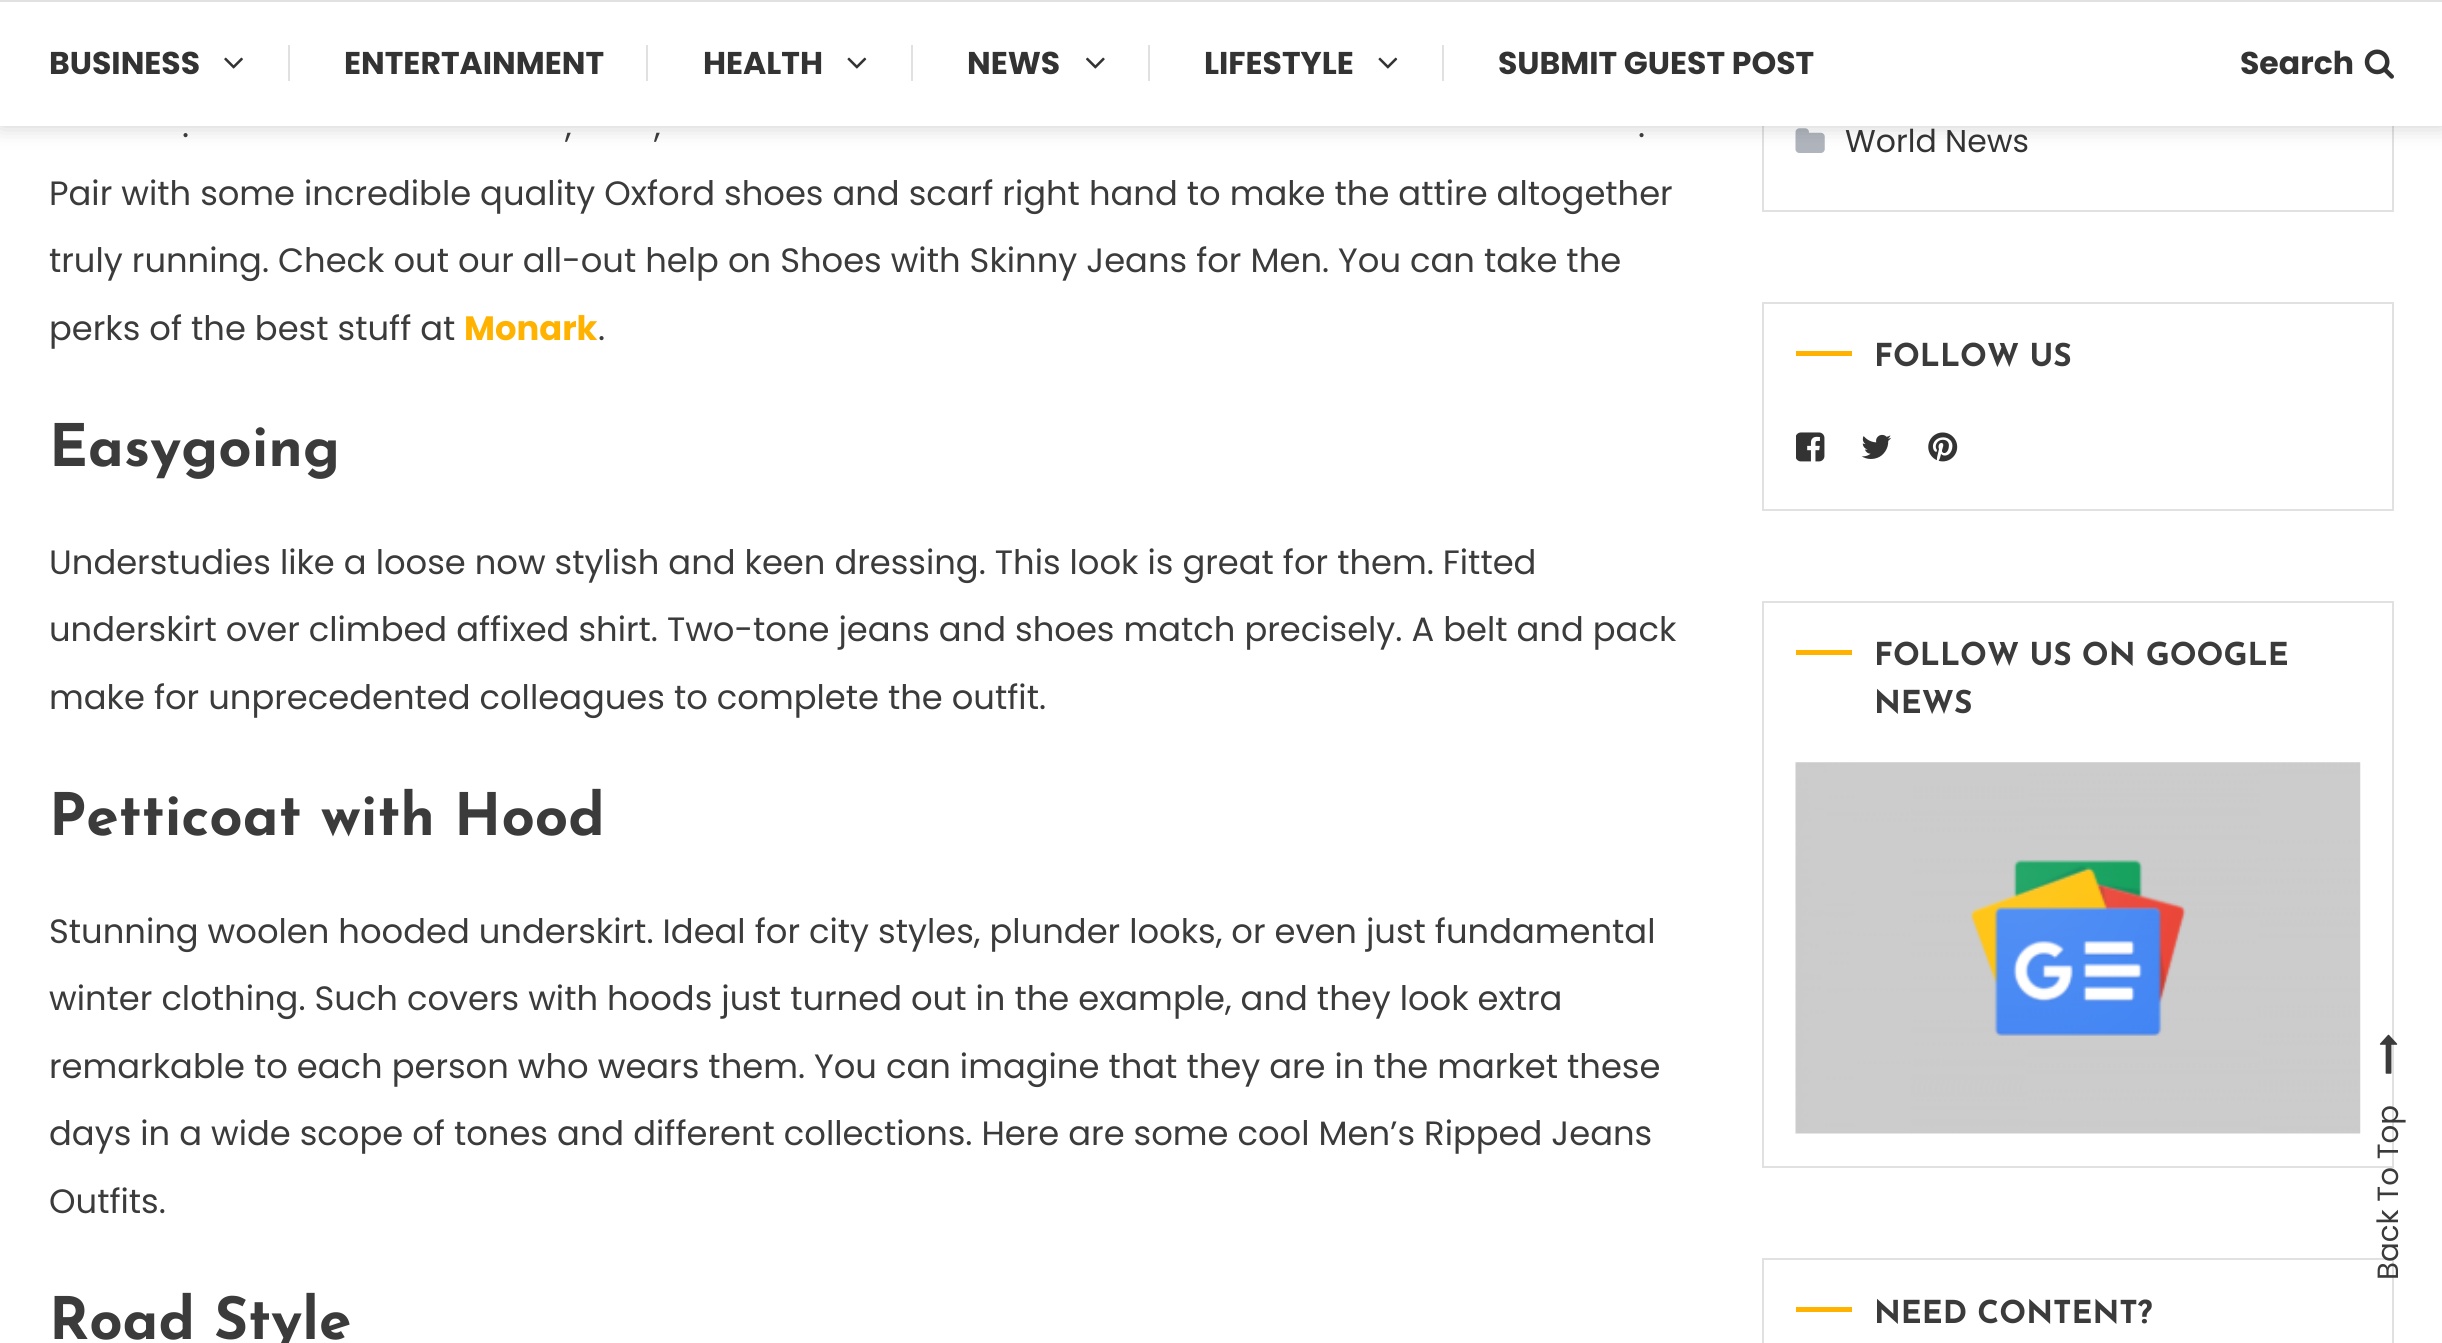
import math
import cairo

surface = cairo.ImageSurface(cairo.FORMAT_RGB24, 2442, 1343)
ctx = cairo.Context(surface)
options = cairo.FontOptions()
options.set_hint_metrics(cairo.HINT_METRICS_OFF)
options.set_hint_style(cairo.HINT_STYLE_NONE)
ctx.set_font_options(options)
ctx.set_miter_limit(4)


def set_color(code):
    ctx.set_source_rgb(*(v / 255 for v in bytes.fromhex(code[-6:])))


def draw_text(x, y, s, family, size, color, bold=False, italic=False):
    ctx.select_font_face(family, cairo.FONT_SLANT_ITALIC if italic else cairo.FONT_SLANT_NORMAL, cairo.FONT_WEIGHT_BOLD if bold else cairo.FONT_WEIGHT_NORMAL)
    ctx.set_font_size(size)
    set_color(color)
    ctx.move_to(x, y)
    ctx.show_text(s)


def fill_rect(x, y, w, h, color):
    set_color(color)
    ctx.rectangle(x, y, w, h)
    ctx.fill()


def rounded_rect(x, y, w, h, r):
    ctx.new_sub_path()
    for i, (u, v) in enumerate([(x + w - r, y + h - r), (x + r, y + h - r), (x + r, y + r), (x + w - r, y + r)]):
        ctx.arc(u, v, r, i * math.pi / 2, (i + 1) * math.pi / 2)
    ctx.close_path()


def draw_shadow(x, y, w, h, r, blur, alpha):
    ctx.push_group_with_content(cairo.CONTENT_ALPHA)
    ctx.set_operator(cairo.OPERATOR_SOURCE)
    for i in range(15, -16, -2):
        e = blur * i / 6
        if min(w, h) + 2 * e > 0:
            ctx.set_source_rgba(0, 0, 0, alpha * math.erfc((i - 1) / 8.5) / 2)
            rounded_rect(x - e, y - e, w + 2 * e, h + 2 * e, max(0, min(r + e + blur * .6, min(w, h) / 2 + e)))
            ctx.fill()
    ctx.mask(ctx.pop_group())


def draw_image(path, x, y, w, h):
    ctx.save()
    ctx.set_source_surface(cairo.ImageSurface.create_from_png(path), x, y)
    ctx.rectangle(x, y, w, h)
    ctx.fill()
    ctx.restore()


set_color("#ffffff")
ctx.paint()
ctx.rectangle(1763, -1, 630, 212)
set_color("#e1e1e1")
ctx.stroke()
draw_image("assets/img5.png", 1795, 128, 30, 25)
set_color("#000000")
draw_shadow(0, 0, 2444, 126, 0, 11, 0.2)
fill_rect(0, 2, 2442, 124, "#ffffff")
fill_rect(0, 0, 2442, 2, "#e1e1e1")
draw_text(49, 74, "BUSINESS", "Poppins", 31.5, "#333333", bold=True)
draw_image("assets/img1.png", 224, 57, 19, 12)
fill_rect(288, 45, 2, 36, "#e1e1e1")
draw_text(344, 74, "ENTERTAINMENT", "Poppins", 31.5, "#333333", bold=True)
fill_rect(646, 45, 2, 36, "#e1e1e1")
draw_text(703, 74, "HEALTH", "Poppins", 31.5, "#333333", bold=True)
draw_image("assets/img2.png", 847, 57, 20, 12)
fill_rect(911, 45, 2, 36, "#e1e1e1")
draw_text(967, 74, "NEWS", "Poppins", 31.5, "#333333", bold=True)
draw_image("assets/img3.png", 1086, 57, 19, 12)
fill_rect(1148, 45, 2, 36, "#e1e1e1")
draw_text(1204, 74, "LIFESTYLE", "Poppins", 31.5, "#333333", bold=True)
draw_image("assets/img2.png", 1378, 57, 20, 12)
fill_rect(1442, 45, 2, 36, "#e1e1e1")
draw_text(1498, 74, "SUBMIT GUEST POST", "Poppins", 31.5, "#333333", bold=True)
draw_text(2240, 74, "Search", "Poppins", 31.5, "#333333", bold=True)
draw_image("assets/img4.png", 2364, 49, 30, 30)
draw_text(182, 137, ".", "Poppins", 33.75, "#3b3b3b")
draw_text(565, 137, ",", "Poppins", 33.75, "#3b3b3b")
draw_text(654, 137, ",", "Poppins", 33.75, "#3b3b3b")
draw_text(1638, 137, ".", "Poppins", 33.75, "#3b3b3b")
draw_text(49, 205, "Pair with some incredible quality Oxford shoes and scarf right hand to make the attire altogether", "Poppins", 33.75, "#3b3b3b")
draw_text(49, 272, "truly running. Check out our all-out help on Shoes with Skinny Jeans for Men. You can take the", "Poppins", 33.75, "#3b3b3b")
draw_text(49, 340, "perks of the best stuff at", "Poppins", 33.75, "#3b3b3b")
draw_text(464, 340, "Monark", "Poppins", 33.75, "#ffb300", bold=True)
draw_text(598, 340, ".", "Poppins", 33.75, "#3b3b3b")
draw_text(49, 466, "Easygoing", "Josefin Sans", 58.5, "#3b3b3b", bold=True)
draw_text(49, 574, "Understudies like a loose now stylish and keen dressing. This look is great for them. Fitted", "Poppins", 33.75, "#3b3b3b")
draw_text(49, 641, "underskirt over climbed affixed shirt. Two-tone jeans and shoes match precisely. A belt and pack", "Poppins", 33.75, "#3b3b3b")
draw_text(49, 709, "make for unprecedented colleagues to complete the outfit.", "Poppins", 33.75, "#3b3b3b")
draw_text(49, 835, "Petticoat with Hood", "Josefin Sans", 58.5, "#3b3b3b", bold=True)
draw_text(49, 943, "Stunning woolen hooded underskirt. Ideal for city styles, plunder looks, or even just fundamental", "Poppins", 33.75, "#3b3b3b")
draw_text(49, 1010, "winter clothing. Such covers with hoods just turned out in the example, and they look extra", "Poppins", 33.75, "#3b3b3b")
draw_text(49, 1078, "remarkable to each person who wears them. You can imagine that they are in the market these", "Poppins", 33.75, "#3b3b3b")
draw_text(49, 1145, "days in a wide scope of tones and different collections. Here are some cool Men’s Ripped Jeans", "Poppins", 33.75, "#3b3b3b")
draw_text(49, 1213, "Outfits.", "Poppins", 33.75, "#3b3b3b")
draw_text(49, 1339, "Road Style", "Josefin Sans", 58.5, "#3b3b3b", bold=True)
draw_text(1845, 152, "World News", "Poppins", 31.5, "#333333")
ctx.rectangle(1763, 303, 630, 207)
set_color("#e1e1e1")
ctx.stroke()
fill_rect(1796, 351, 56, 5, "#ffb300")
draw_text(1874, 366, "FOLLOW US", "Josefin Sans", 31.5, "#3b3b3b", bold=True)
draw_image("assets/img6.png", 1796, 432, 29, 30)
draw_image("assets/img7.png", 1861, 434, 31, 25)
draw_image("assets/img8.png", 1928, 432, 30, 30)
ctx.rectangle(1763, 602, 630, 565)
set_color("#e1e1e1")
ctx.stroke()
fill_rect(1796, 650, 56, 5, "#ffb300")
draw_text(1874, 665, "FOLLOW US ON GOOGLE", "Josefin Sans", 31.5, "#3b3b3b", bold=True)
draw_text(1874, 713, "NEWS", "Josefin Sans", 31.5, "#3b3b3b", bold=True)
draw_image("assets/img9.png", 1795, 762, 566, 372)
ctx.rectangle(1763, 1259, 630, 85)
set_color("#e1e1e1")
ctx.stroke()
fill_rect(1796, 1307, 56, 5, "#ffb300")
draw_text(1874, 1323, "NEED CONTENT?", "Josefin Sans", 31.5, "#3b3b3b", bold=True)
draw_image("assets/img10.png", 2379, 1034, 19, 40)
ctx.save()
ctx.translate(2398, 1280)
ctx.rotate(-90 * math.pi / 180)
draw_text(0, 0, "Back To Top", "Poppins", 29.25, "#3b3b3b")
ctx.restore()
surface.write_to_png("output.png")
